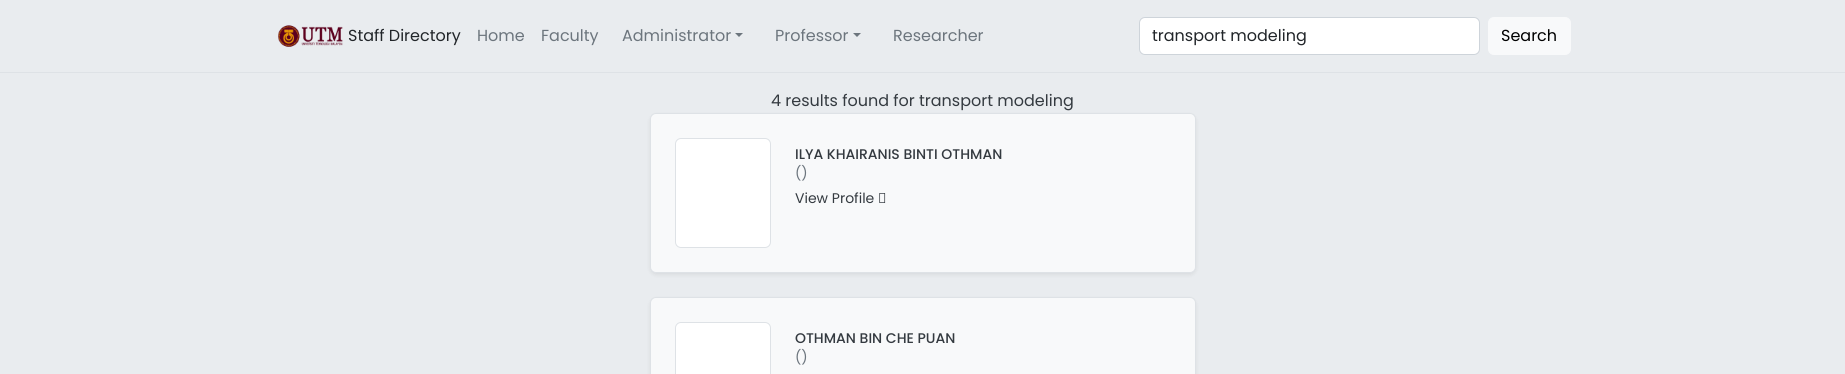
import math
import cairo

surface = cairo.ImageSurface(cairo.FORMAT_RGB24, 1845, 374)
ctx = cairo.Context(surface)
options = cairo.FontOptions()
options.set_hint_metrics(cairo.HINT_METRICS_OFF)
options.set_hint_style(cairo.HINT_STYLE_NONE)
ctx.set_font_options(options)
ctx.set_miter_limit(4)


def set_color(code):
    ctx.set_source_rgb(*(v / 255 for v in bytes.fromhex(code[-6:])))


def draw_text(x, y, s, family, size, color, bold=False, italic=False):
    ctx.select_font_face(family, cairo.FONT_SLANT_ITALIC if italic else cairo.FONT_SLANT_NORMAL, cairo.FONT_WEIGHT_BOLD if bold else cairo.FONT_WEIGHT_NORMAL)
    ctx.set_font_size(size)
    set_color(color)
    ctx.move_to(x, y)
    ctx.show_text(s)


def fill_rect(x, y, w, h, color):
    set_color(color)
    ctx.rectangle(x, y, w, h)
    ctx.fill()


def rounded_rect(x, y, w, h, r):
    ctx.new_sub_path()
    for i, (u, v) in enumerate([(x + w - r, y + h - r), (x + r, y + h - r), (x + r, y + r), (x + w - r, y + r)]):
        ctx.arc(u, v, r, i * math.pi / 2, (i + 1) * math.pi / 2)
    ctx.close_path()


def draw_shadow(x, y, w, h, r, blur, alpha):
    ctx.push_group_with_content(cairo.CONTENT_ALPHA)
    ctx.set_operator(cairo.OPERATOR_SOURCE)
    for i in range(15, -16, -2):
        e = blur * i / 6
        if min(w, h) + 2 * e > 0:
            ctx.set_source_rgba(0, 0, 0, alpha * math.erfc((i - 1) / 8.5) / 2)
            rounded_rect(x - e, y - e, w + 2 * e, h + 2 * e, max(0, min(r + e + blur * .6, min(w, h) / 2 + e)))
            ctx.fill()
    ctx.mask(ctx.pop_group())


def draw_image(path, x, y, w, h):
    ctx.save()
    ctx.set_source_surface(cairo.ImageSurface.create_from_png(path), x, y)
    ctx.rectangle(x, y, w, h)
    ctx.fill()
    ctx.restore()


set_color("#e9ecef")
ctx.paint()
fill_rect(0, 72, 1845, 1, "#dee2e6")
draw_image("assets/img1.png", 278, 25, 65, 22)
draw_text(348, 41, "Staff Directory", "Poppins", 16, "#212529")
draw_text(477, 41, "Home", "Poppins", 16, "#6c757d")
draw_text(541, 41, "Faculty", "Poppins", 16, "#6c757d")
draw_text(622, 41, "Administrator", "Poppins", 16, "#6c757d")
ctx.new_path()
ctx.move_to(735, 33)
ctx.line_to(743, 33)
ctx.line_to(739, 37)
ctx.close_path()
ctx.fill()
draw_text(775, 41, "Professor", "Poppins", 16, "#6c757d")
ctx.new_path()
ctx.move_to(853, 33)
ctx.line_to(861, 33)
ctx.line_to(857, 37)
ctx.close_path()
ctx.fill()
draw_text(893, 41, "Researcher", "Poppins", 16, "#6c757d")
set_color("#ffffff")
rounded_rect(1139.5, 17.5, 340, 37, 5.5)
ctx.fill_preserve()
set_color("#ced4da")
ctx.set_line_width(1)
ctx.stroke()
draw_text(1152, 41, "transport modeling", "Poppins", 16, "#212529")
set_color("#f8f9fa")
rounded_rect(1488.5, 17.5, 82, 37, 5.5)
ctx.fill_preserve()
ctx.stroke()
draw_text(1501, 41, "Search", "Poppins", 16, "#000000")
draw_text(771, 106, "4 results found for transport modeling", "Poppins", 16, "#343a40")
set_color("#000000")
draw_shadow(650, 115, 546, 160, 6, 2, 0.07)
set_color("#f8f9fa")
rounded_rect(650.5, 113.5, 545, 159, 5.5)
ctx.fill_preserve()
set_color("#dee2e6")
ctx.stroke()
set_color("#ffffff")
rounded_rect(675.5, 138.5, 95, 109, 5.5)
ctx.fill_preserve()
set_color("#dee2e6")
ctx.stroke()
draw_text(795, 159, "ILYA KHAIRANIS BINTI OTHMAN", "Poppins Medium", 14, "#343a40")
draw_text(795, 178, "()", "Poppins", 14, "#6c757d")
draw_text(795, 203, "View Profile", "Poppins", 14, "#343a40")
draw_image("assets/img2.png", 879, 193, 7, 10)
set_color("#000000")
draw_shadow(650, 299, 546, 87, 6, 2, 0.07)
set_color("#f8f9fa")
rounded_rect(650.5, 297.5, 545, 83, 5.5)
ctx.fill_preserve()
set_color("#dee2e6")
ctx.stroke()
set_color("#ffffff")
rounded_rect(675.5, 322.5, 95, 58, 5.5)
ctx.fill_preserve()
set_color("#dee2e6")
ctx.stroke()
draw_text(795, 343, "OTHMAN BIN CHE PUAN", "Poppins Medium", 14, "#343a40")
draw_text(795, 362, "()", "Poppins", 14, "#6c757d")
surface.write_to_png("output.png")
